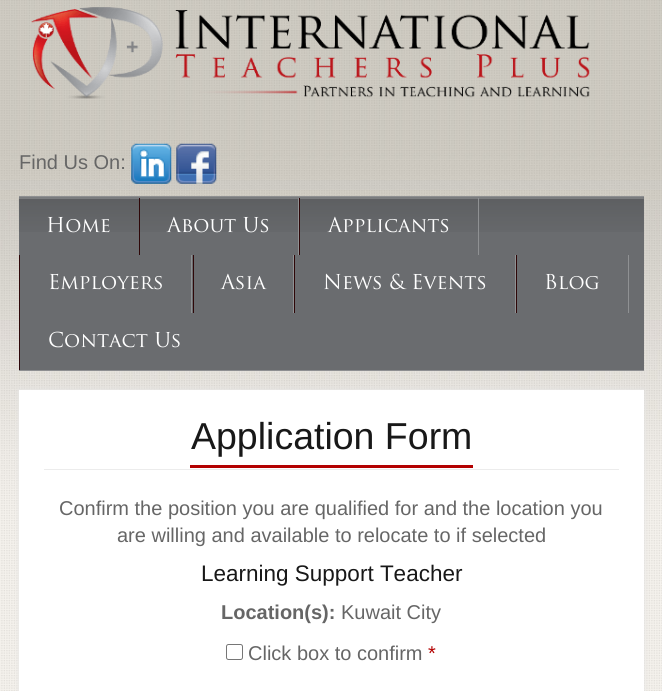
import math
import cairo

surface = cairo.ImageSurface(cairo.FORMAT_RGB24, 662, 691)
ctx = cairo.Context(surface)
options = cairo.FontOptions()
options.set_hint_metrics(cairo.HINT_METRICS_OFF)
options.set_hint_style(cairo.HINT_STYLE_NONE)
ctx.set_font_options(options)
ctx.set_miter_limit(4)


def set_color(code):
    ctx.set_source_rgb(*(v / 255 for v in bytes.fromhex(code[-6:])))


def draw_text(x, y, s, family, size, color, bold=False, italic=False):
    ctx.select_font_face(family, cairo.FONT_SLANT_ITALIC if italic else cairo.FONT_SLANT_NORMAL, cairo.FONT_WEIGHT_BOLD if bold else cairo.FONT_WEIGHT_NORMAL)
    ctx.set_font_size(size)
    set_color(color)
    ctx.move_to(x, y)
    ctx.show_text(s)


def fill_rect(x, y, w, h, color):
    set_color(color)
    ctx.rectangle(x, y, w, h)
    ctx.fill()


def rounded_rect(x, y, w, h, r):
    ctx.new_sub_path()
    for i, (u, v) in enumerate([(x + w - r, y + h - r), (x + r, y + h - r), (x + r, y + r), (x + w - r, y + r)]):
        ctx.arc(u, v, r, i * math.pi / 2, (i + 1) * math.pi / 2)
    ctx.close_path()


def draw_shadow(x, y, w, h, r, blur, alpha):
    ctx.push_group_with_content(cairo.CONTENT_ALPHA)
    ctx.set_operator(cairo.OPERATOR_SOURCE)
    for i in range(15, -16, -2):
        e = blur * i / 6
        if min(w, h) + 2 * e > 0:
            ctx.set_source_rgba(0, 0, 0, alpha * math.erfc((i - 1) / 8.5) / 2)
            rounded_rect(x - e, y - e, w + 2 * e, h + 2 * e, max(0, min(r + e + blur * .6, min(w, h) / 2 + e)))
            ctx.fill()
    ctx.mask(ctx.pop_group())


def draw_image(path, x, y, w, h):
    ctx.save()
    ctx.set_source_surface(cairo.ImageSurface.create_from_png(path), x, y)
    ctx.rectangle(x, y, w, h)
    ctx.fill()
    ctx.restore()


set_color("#ffffff")
ctx.paint()
draw_image("assets/img1.png", 0, 0, 662, 691)
draw_image("assets/img2.png", 31, 7, 559, 92)
draw_text(19, 169, "Find Us On:", "Liberation Sans", 20, "#666666")
draw_image("assets/img3.png", 131, 143, 41, 41)
draw_image("assets/img4.png", 176, 143, 41, 41)
fill_rect(19, 197, 625, 173, "#6a6c6f")
draw_image("assets/img5.png", 18, 197, 626, 35)
fill_rect(19, 196, 625, 1, "#8e8f91")
fill_rect(19, 370, 625, 1, "#8e8f91")
draw_text(46, 232, "Home", "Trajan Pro", 20, "#ffffff")
fill_rect(298, 198, 1, 57, "#8f9193")
fill_rect(139, 198, 1, 57, "#2e0708")
draw_text(167, 232, "About Us", "Trajan Pro", 20, "#ffffff")
fill_rect(478, 198, 1, 57, "#8f9193")
fill_rect(299, 198, 1, 57, "#2e0708")
draw_text(328, 232, "Applicants", "Trajan Pro", 20, "#ffffff")
fill_rect(191, 255, 1, 58, "#8f9193")
fill_rect(19, 255, 1, 115, "#2e0708")
draw_text(48, 289, "Employers", "Trajan Pro", 20, "#ffffff")
fill_rect(293, 255, 1, 58, "#8f9193")
fill_rect(193, 255, 1, 58, "#2e0708")
draw_text(221, 289, "Asia", "Trajan Pro", 20, "#ffffff")
fill_rect(515, 255, 1, 58, "#8f9193")
fill_rect(294, 255, 1, 58, "#2e0708")
draw_text(323, 289, "News & Events", "Trajan Pro", 20, "#ffffff")
fill_rect(628, 255, 1, 58, "#8f9193")
fill_rect(516, 255, 1, 58, "#2e0708")
draw_text(544, 289, "Blog", "Trajan Pro", 20, "#ffffff")
draw_text(48, 347, "Contact Us", "Trajan Pro", 20, "#ffffff")
set_color("#e5e5e5")
draw_shadow(19, 390, 625, 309, 0, 2.5, 1)
fill_rect(19, 390, 625, 301, "#ffffff")
fill_rect(44, 469, 575, 1, "#ececec")
draw_text(191, 449, "Application Form", "Liberation Sans", 37.5, "#181818")
fill_rect(190, 465, 283, 3, "#b30000")
draw_text(59, 515, "Confirm the position you are qualified for and the location you", "Liberation Sans", 20, "#666666")
draw_text(117, 542, "are willing and available to relocate to if selected", "Liberation Sans", 20, "#666666")
draw_text(201, 581, "Learning Support Teacher", "Liberation Sans", 22.5, "#181818")
draw_text(221, 619, "Location(s):", "Liberation Sans", 20, "#666666", bold=True)
draw_text(341, 619, "Kuwait City", "Liberation Sans", 20, "#666666")
rounded_rect(226.5, 644.5, 16, 15, 2)
set_color("#767676")
ctx.set_line_width(1)
ctx.stroke()
draw_text(248, 660, "Click box to confirm", "Liberation Sans", 20, "#666666")
draw_text(428, 660, "*", "Liberation Sans", 20, "#b30000")
surface.write_to_png("output.png")
